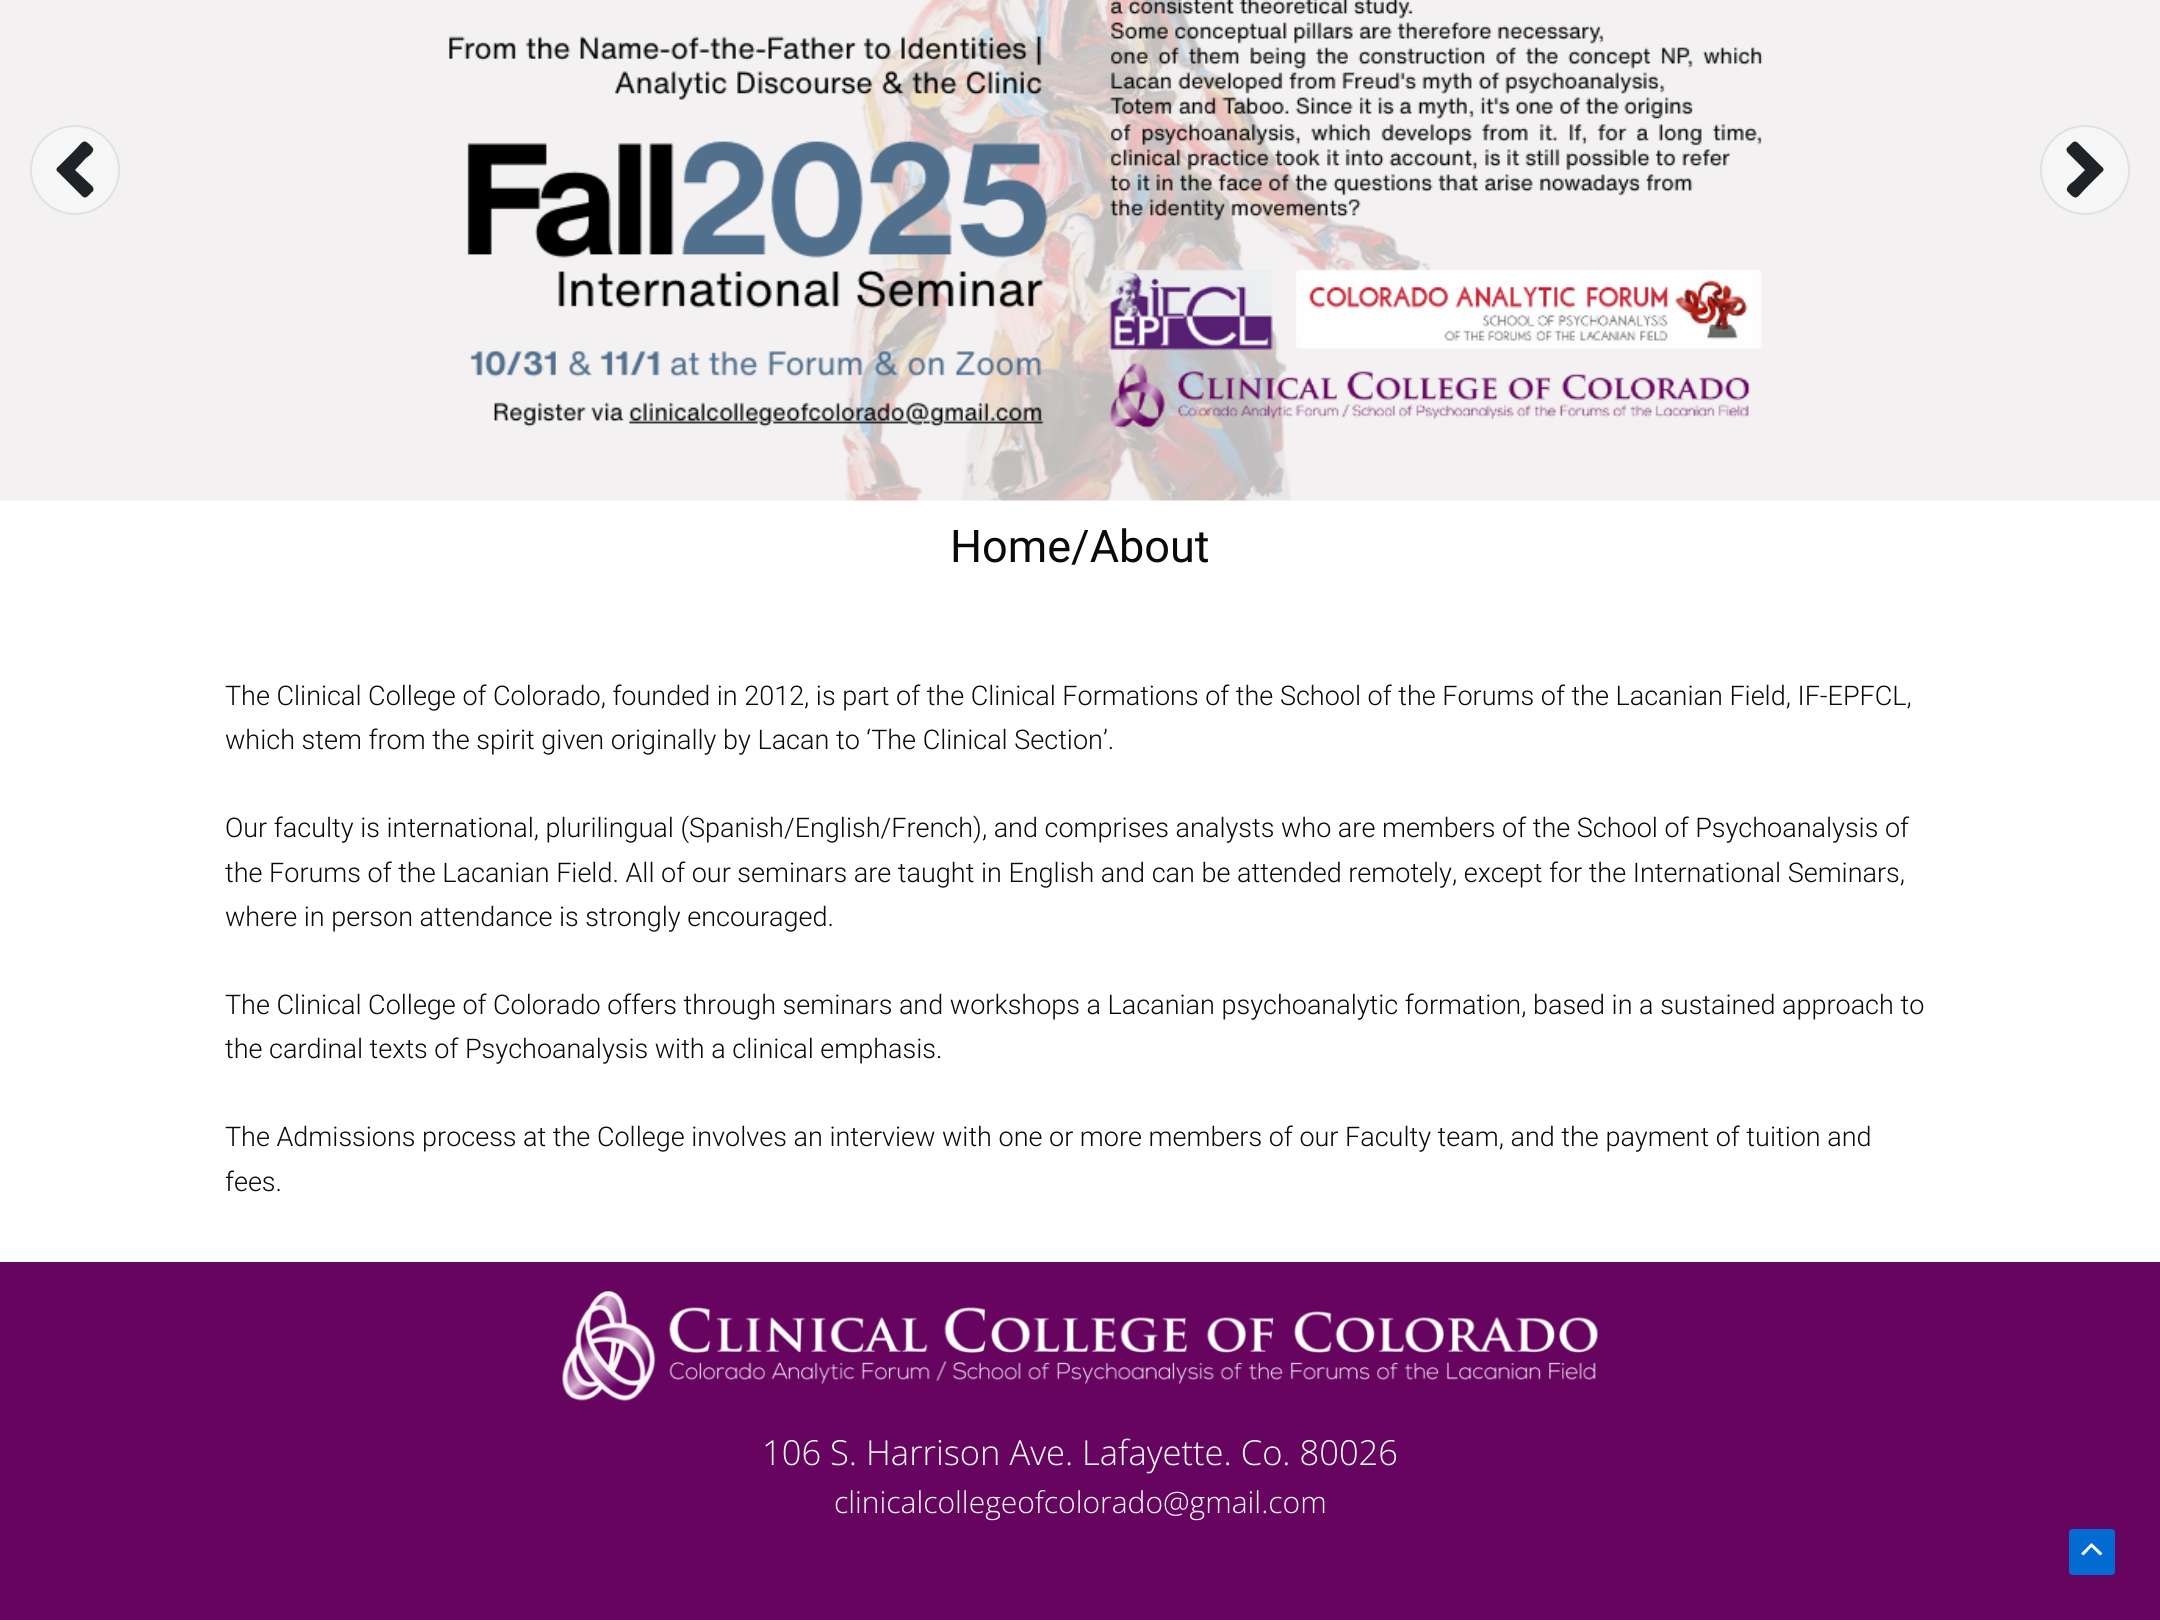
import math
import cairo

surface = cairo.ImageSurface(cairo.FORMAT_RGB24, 2160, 1620)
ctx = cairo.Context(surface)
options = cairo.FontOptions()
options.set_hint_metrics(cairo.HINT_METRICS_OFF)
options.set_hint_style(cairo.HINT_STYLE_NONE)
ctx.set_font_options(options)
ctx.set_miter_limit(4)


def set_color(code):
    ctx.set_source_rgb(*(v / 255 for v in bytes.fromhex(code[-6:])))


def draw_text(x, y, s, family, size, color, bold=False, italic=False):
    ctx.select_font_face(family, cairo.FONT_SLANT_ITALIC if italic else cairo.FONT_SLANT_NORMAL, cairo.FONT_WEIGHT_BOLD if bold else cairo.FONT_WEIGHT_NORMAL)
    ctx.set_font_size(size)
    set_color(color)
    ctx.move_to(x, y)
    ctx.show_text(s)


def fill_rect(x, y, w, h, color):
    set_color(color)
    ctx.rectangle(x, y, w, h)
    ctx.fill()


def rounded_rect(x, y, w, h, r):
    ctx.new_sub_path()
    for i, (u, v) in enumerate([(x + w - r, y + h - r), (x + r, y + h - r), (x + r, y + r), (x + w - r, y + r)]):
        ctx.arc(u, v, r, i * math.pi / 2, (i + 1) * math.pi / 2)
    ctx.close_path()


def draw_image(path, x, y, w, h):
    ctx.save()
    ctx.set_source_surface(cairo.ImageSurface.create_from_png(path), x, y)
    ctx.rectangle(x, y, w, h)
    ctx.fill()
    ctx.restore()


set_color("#ffffff")
ctx.paint()
draw_image("assets/img1.png", 0, 0, 2160, 501)
ctx.set_source_rgba(1, 1, 1, 0.37)
ctx.arc(75, 170, 44, 0, 2 * math.pi)
ctx.fill_preserve()
set_color("#e1e1e1")
ctx.stroke()
set_color("#1f2226")
ctx.new_path()
ctx.move_to(58, 167)
ctx.line_to(74, 151)
ctx.curve_to(83, 142, 83, 137, 92, 147)
ctx.curve_to(96, 151, 89, 156, 86, 158)
ctx.line_to(75, 170)
ctx.line_to(92, 186)
ctx.curve_to(94, 188, 94, 191, 92, 192)
ctx.line_to(88, 196)
ctx.curve_to(86, 198, 84, 198, 82, 196)
ctx.line_to(58, 172)
ctx.curve_to(56, 171, 56, 168, 58, 167)
ctx.close_path()
ctx.fill()
ctx.set_source_rgba(1, 1, 1, 0.37)
ctx.arc(2085, 170, 44, 0, 2 * math.pi)
ctx.fill_preserve()
set_color("#e1e1e1")
ctx.stroke()
set_color("#1f2226")
ctx.new_path()
ctx.move_to(2102, 172)
ctx.line_to(2086, 188)
ctx.curve_to(2077, 197, 2077, 202, 2068, 192)
ctx.curve_to(2064, 188, 2071, 183, 2074, 181)
ctx.line_to(2085, 170)
ctx.line_to(2068, 153)
ctx.curve_to(2066, 151, 2066, 148, 2068, 147)
ctx.line_to(2072, 143)
ctx.curve_to(2074, 141, 2076, 141, 2078, 143)
ctx.line_to(2102, 167)
ctx.curve_to(2104, 168, 2104, 171, 2102, 172)
ctx.close_path()
ctx.fill()
draw_text(950, 562, "Home/About", "Roboto", 45, "#0a0a0a")
draw_text(225, 705, "The Clinical College of Colorado, founded in 2012, is part of the Clinical Formations of the School of the Forums of the Lacanian Field, IF-EPFCL,", "Roboto Light", 27, "#0a0a0a")
draw_text(225, 749, "which stem from the spirit given originally by Lacan to ‘The Clinical Section’.", "Roboto Light", 27, "#0a0a0a")
draw_text(225, 837, "Our faculty is international, plurilingual (Spanish/English/French), and comprises analysts who are members of the School of Psychoanalysis of", "Roboto Light", 27, "#0a0a0a")
draw_text(225, 882, "the Forums of the Lacanian Field. All of our seminars are taught in English and can be attended remotely, except for the International Seminars,", "Roboto Light", 27, "#0a0a0a")
draw_text(225, 926, "where in person attendance is strongly encouraged.", "Roboto Light", 27, "#0a0a0a")
draw_text(225, 1014, "The Clinical College of Colorado offers through seminars and workshops a Lacanian psychoanalytic formation, based in a sustained approach to", "Roboto Light", 27, "#0a0a0a")
draw_text(225, 1058, "the cardinal texts of Psychoanalysis with a clinical emphasis.", "Roboto Light", 27, "#0a0a0a")
draw_text(225, 1146, "The Admissions process at the College involves an interview with one or more members of our Faculty team, and the payment of tuition and", "Roboto Light", 27, "#0a0a0a")
draw_text(225, 1191, "fees.", "Roboto Light", 27, "#0a0a0a")
fill_rect(0, 1262, 2160, 358, "#660460")
draw_image("assets/img2.png", 562, 1291, 1036, 110)
draw_text(762, 1465, "106 S. Harrison Ave. Lafayette. Co. 80026", "Open Sans Light", 34.5, "#ffffff")
draw_text(834, 1513, "clinicalcollegeofcolorado@gmail.com", "Open Sans Light", 30, "#ffffff")
set_color("#046bd2")
rounded_rect(2069, 1529, 46, 46, 3)
ctx.fill()
set_color("#ffffff")
ctx.new_path()
ctx.move_to(2102.5, 1553.5)
ctx.line_to(2091.5, 1543)
ctx.line_to(2081, 1553.5)
ctx.line_to(2083.5, 1555.5)
ctx.line_to(2091.5, 1547)
ctx.line_to(2100, 1555.5)
ctx.close_path()
ctx.fill()
surface.write_to_png("output.png")
